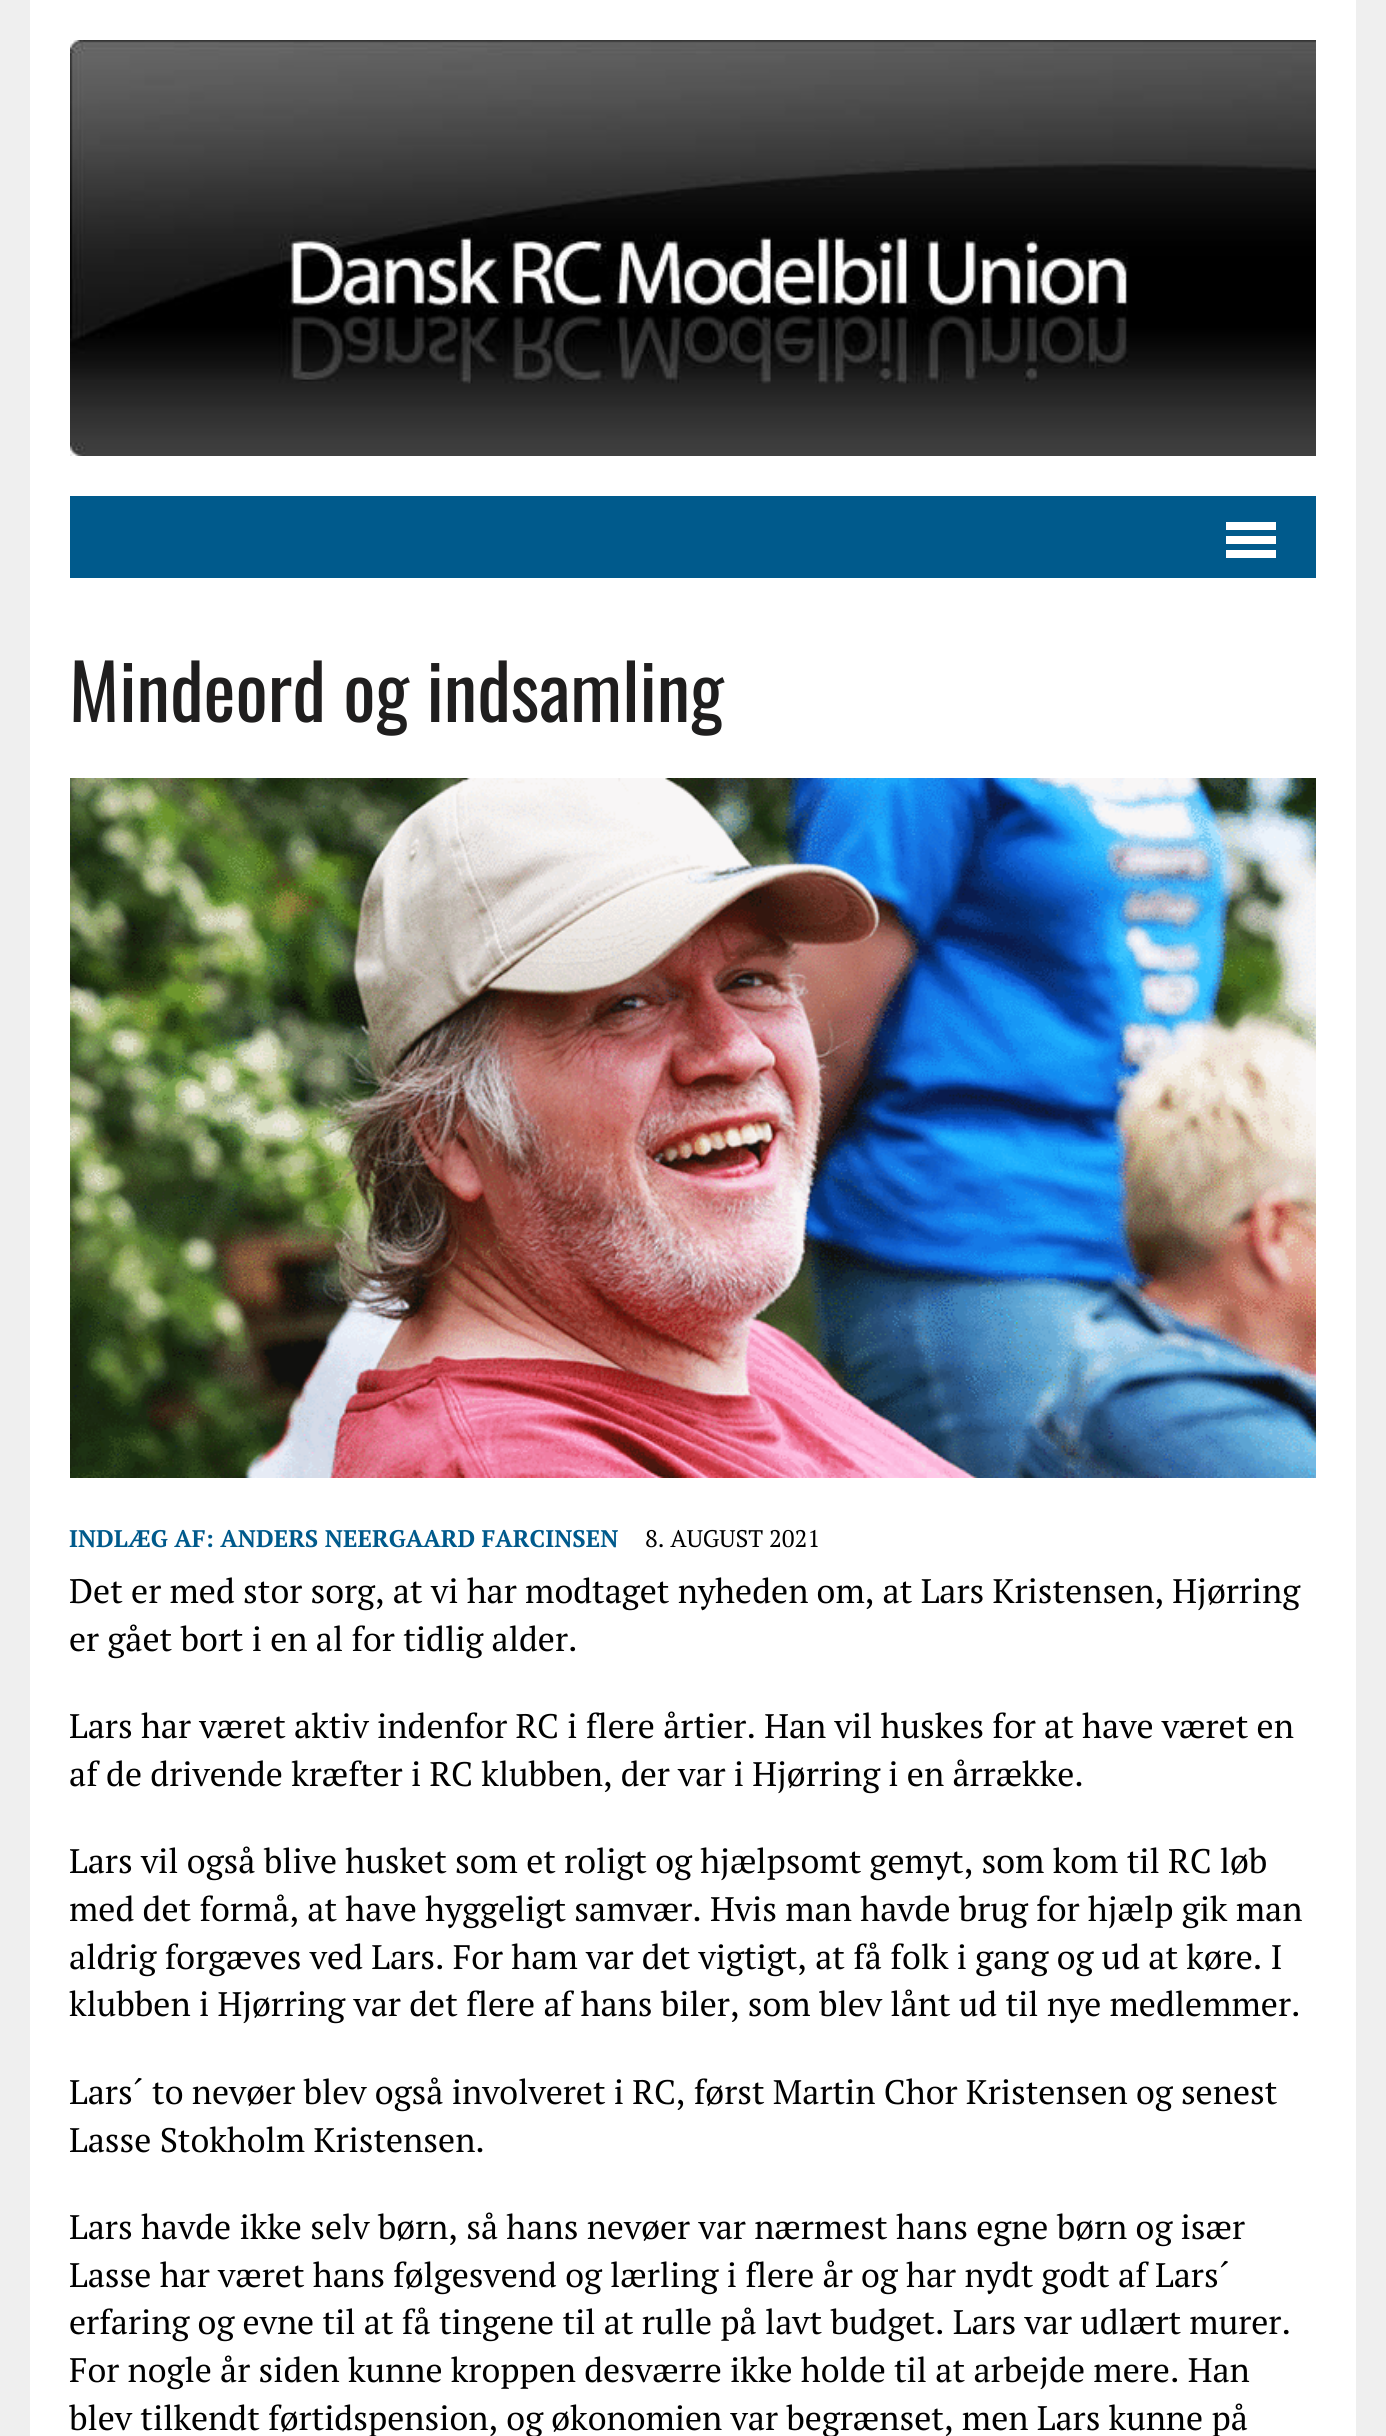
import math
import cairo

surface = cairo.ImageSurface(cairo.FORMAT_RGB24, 1386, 2436)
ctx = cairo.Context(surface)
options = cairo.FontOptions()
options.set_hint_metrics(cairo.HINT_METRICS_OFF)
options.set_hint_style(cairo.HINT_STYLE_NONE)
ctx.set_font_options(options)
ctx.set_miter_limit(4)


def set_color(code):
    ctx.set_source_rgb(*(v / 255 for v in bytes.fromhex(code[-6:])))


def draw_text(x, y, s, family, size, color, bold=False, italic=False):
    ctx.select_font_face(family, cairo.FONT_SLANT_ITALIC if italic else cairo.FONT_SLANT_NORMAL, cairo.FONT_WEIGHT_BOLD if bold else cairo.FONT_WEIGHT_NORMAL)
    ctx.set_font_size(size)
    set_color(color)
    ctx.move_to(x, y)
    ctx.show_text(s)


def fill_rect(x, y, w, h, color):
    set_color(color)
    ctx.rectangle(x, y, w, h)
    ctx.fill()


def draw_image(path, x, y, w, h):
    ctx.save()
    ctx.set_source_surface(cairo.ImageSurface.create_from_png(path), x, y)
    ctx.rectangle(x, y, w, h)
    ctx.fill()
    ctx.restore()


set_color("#efefef")
ctx.paint()
fill_rect(30, 0, 1326, 2436, "#ffffff")
draw_image("assets/img1.png", 70, 40, 1246, 416)
fill_rect(70, 496, 1246, 82, "#005a8c")
fill_rect(1226, 522, 50, 8, "#ffffff")
fill_rect(1226, 536, 50, 8, "#ffffff")
fill_rect(1226, 550, 50, 8, "#ffffff")
draw_text(69, 722, "Mindeord og indsamling", "Oswald", 76, "#1f1e1e")
draw_image("assets/img2.png", 70, 778, 1246, 700)
draw_text(69, 1547, "INDLÆG AF: ANDERS NEERGAARD FARCINSEN", "PT Serif", 24, "#005a8c", bold=True)
draw_text(645, 1547, "8. AUGUST 2021", "PT Serif", 24, "#000000")
draw_text(69, 1603, "Det er med stor sorg, at vi har modtaget nyheden om, at Lars Kristensen, Hjørring", "PT Serif", 34, "#000000")
draw_text(69, 1651, "er gået bort i en al for tidlig alder.", "PT Serif", 34, "#000000")
draw_text(69, 1738, "Lars har været aktiv indenfor RC i flere årtier. Han vil huskes for at have været en", "PT Serif", 34, "#000000")
draw_text(69, 1786, "af de drivende kræfter i RC klubben, der var i Hjørring i en årrække.", "PT Serif", 34, "#000000")
draw_text(69, 1873, "Lars vil også blive husket som et roligt og hjælpsomt gemyt, som kom til RC løb", "PT Serif", 34, "#000000")
draw_text(69, 1921, "med det formå, at have hyggeligt samvær. Hvis man havde brug for hjælp gik man", "PT Serif", 34, "#000000")
draw_text(69, 1969, "aldrig forgæves ved Lars. For ham var det vigtigt, at få folk i gang og ud at køre. I", "PT Serif", 34, "#000000")
draw_text(69, 2016, "klubben i Hjørring var det flere af hans biler, som blev lånt ud til nye medlemmer.", "PT Serif", 34, "#000000")
draw_text(69, 2104, "Lars´ to nevøer blev også involveret i RC, først Martin Chor Kristensen og senest", "PT Serif", 34, "#000000")
draw_text(69, 2152, "Lasse Stokholm Kristensen.", "PT Serif", 34, "#000000")
draw_text(69, 2239, "Lars havde ikke selv børn, så hans nevøer var nærmest hans egne børn og især", "PT Serif", 34, "#000000")
draw_text(69, 2287, "Lasse har været hans følgesvend og lærling i flere år og har nydt godt af Lars´", "PT Serif", 34, "#000000")
draw_text(69, 2334, "erfaring og evne til at få tingene til at rulle på lavt budget. Lars var udlært murer.", "PT Serif", 34, "#000000")
draw_text(69, 2382, "For nogle år siden kunne kroppen desværre ikke holde til at arbejde mere. Han", "PT Serif", 34, "#000000")
draw_text(69, 2430, "blev tilkendt førtidspension, og økonomien var begrænset, men Lars kunne på", "PT Serif", 34, "#000000")
surface.write_to_png("output.png")
